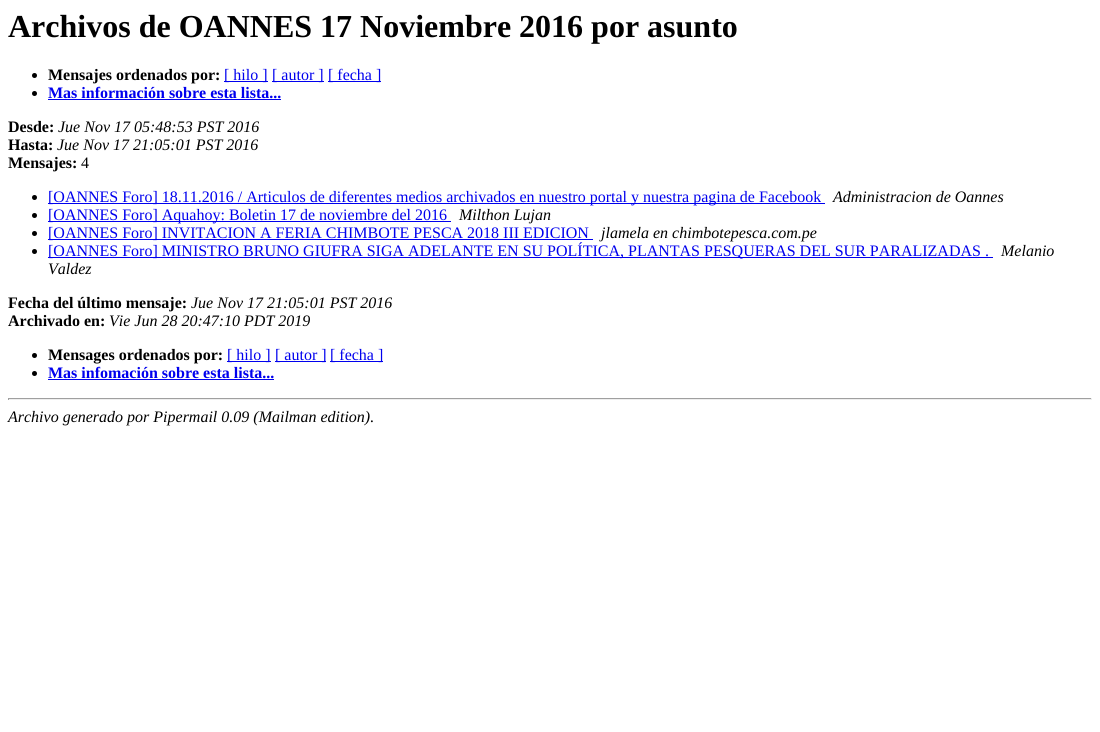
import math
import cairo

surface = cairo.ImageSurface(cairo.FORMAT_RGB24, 1100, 732)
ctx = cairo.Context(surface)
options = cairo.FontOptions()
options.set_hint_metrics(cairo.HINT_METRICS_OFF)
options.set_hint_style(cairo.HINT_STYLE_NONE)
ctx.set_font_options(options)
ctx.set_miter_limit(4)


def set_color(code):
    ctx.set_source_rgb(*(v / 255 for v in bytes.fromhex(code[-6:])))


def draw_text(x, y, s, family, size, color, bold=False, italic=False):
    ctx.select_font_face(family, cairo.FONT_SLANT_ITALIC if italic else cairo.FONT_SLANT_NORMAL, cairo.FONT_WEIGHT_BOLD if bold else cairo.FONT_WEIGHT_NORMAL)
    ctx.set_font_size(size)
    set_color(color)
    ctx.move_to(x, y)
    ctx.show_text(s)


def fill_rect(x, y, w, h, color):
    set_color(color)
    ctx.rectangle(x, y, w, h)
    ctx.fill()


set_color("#ffffff")
ctx.paint()
draw_text(8, 37, "Archivos de OANNES 17 Noviembre 2016 por asunto", "Liberation Serif", 32, "#000000", bold=True)
ctx.new_path()
ctx.arc(34.5, 75.5, 2.5, 0, 2 * math.pi)
ctx.fill()
draw_text(48, 80, "Mensajes ordenados por:", "Liberation Serif", 16, "#000000", bold=True)
fill_rect(224, 81, 44, 1, "#0000ee")
draw_text(224, 80, "[ hilo ]", "Liberation Serif", 16, "#0000ee")
fill_rect(272, 81, 52, 1, "#0000ee")
draw_text(272, 80, "[ autor ]", "Liberation Serif", 16, "#0000ee")
fill_rect(328, 81, 53, 1, "#0000ee")
draw_text(328, 80, "[ fecha ]", "Liberation Serif", 16, "#0000ee")
set_color("#000000")
ctx.new_path()
ctx.arc(34.5, 93.5, 2.5, 0, 2 * math.pi)
ctx.fill()
draw_text(48, 98, "Mas información sobre esta lista...", "Liberation Serif", 16, "#0000ee", bold=True)
fill_rect(48, 99, 233, 1, "#0000ee")
draw_text(8, 132, "Desde:", "Liberation Serif", 16, "#000000", bold=True)
draw_text(58, 132, "Jue Nov 17 05:48:53 PST 2016", "Liberation Serif", 16, "#000000", italic=True)
draw_text(8, 150, "Hasta:", "Liberation Serif", 16, "#000000", bold=True)
draw_text(57, 150, "Jue Nov 17 21:05:01 PST 2016", "Liberation Serif", 16, "#000000", italic=True)
draw_text(8, 168, "Mensajes:", "Liberation Serif", 16, "#000000", bold=True)
draw_text(81, 168, "4", "Liberation Serif", 16, "#000000")
ctx.new_path()
ctx.arc(34.5, 197.5, 2.5, 0, 2 * math.pi)
ctx.fill()
fill_rect(48, 203, 777, 1, "#0000ee")
draw_text(48, 202, "[OANNES Foro] 18.11.2016 / Articulos de diferentes medios archivados en nuestro portal y nuestra pagina de Facebook", "Liberation Serif", 16, "#0000ee")
draw_text(833, 202, "Administracion de Oannes", "Liberation Serif", 16, "#000000", italic=True)
ctx.new_path()
ctx.arc(34.5, 215.5, 2.5, 0, 2 * math.pi)
ctx.fill()
fill_rect(48, 221, 403, 1, "#0000ee")
draw_text(48, 220, "[OANNES Foro] Aquahoy: Boletin 17 de noviembre del 2016", "Liberation Serif", 16, "#0000ee")
draw_text(459, 220, "Milthon Lujan", "Liberation Serif", 16, "#000000", italic=True)
ctx.new_path()
ctx.arc(34.5, 233.5, 2.5, 0, 2 * math.pi)
ctx.fill()
fill_rect(48, 239, 545, 1, "#0000ee")
draw_text(48, 238, "[OANNES Foro] INVITACION A FERIA CHIMBOTE PESCA 2018 III EDICION", "Liberation Serif", 16, "#0000ee")
draw_text(601, 238, "jlamela en chimbotepesca.com.pe", "Liberation Serif", 16, "#000000", italic=True)
ctx.new_path()
ctx.arc(34.5, 251.5, 2.5, 0, 2 * math.pi)
ctx.fill()
fill_rect(48, 257, 945, 1, "#0000ee")
draw_text(48, 256, "[OANNES Foro] MINISTRO BRUNO GIUFRA SIGA ADELANTE EN SU POLÍTICA, PLANTAS PESQUERAS DEL SUR PARALIZADAS .", "Liberation Serif", 16, "#0000ee")
draw_text(1001, 256, "Melanio", "Liberation Serif", 16, "#000000", italic=True)
draw_text(48, 274, "Valdez", "Liberation Serif", 16, "#000000", italic=True)
draw_text(8, 308, "Fecha del último mensaje:", "Liberation Serif", 16, "#000000", bold=True)
draw_text(191, 308, "Jue Nov 17 21:05:01 PST 2016", "Liberation Serif", 16, "#000000", italic=True)
draw_text(8, 326, "Archivado en:", "Liberation Serif", 16, "#000000", bold=True)
draw_text(109, 326, "Vie Jun 28 20:47:10 PDT 2019", "Liberation Serif", 16, "#000000", italic=True)
ctx.new_path()
ctx.arc(34.5, 355.5, 2.5, 0, 2 * math.pi)
ctx.fill()
draw_text(48, 360, "Mensages ordenados por:", "Liberation Serif", 16, "#000000", bold=True)
fill_rect(227, 361, 44, 1, "#0000ee")
draw_text(227, 360, "[ hilo ]", "Liberation Serif", 16, "#0000ee")
fill_rect(275, 361, 51, 1, "#0000ee")
draw_text(275, 360, "[ autor ]", "Liberation Serif", 16, "#0000ee")
fill_rect(330, 361, 53, 1, "#0000ee")
draw_text(330, 360, "[ fecha ]", "Liberation Serif", 16, "#0000ee")
set_color("#000000")
ctx.new_path()
ctx.arc(34.5, 373.5, 2.5, 0, 2 * math.pi)
ctx.fill()
draw_text(48, 378, "Mas infomación sobre esta lista...", "Liberation Serif", 16, "#0000ee", bold=True)
fill_rect(48, 379, 226, 1, "#0000ee")
fill_rect(8, 398, 1084, 1, "#9f9f9f")
fill_rect(1091, 398, 1, 2, "#eeeeee")
fill_rect(8, 399, 1084, 1, "#eeeeee")
fill_rect(8, 398, 1, 2, "#9f9f9f")
draw_text(8, 422, "Archivo generado por Pipermail 0.09 (Mailman edition).", "Liberation Serif", 16, "#000000", italic=True)
surface.write_to_png("output.png")
